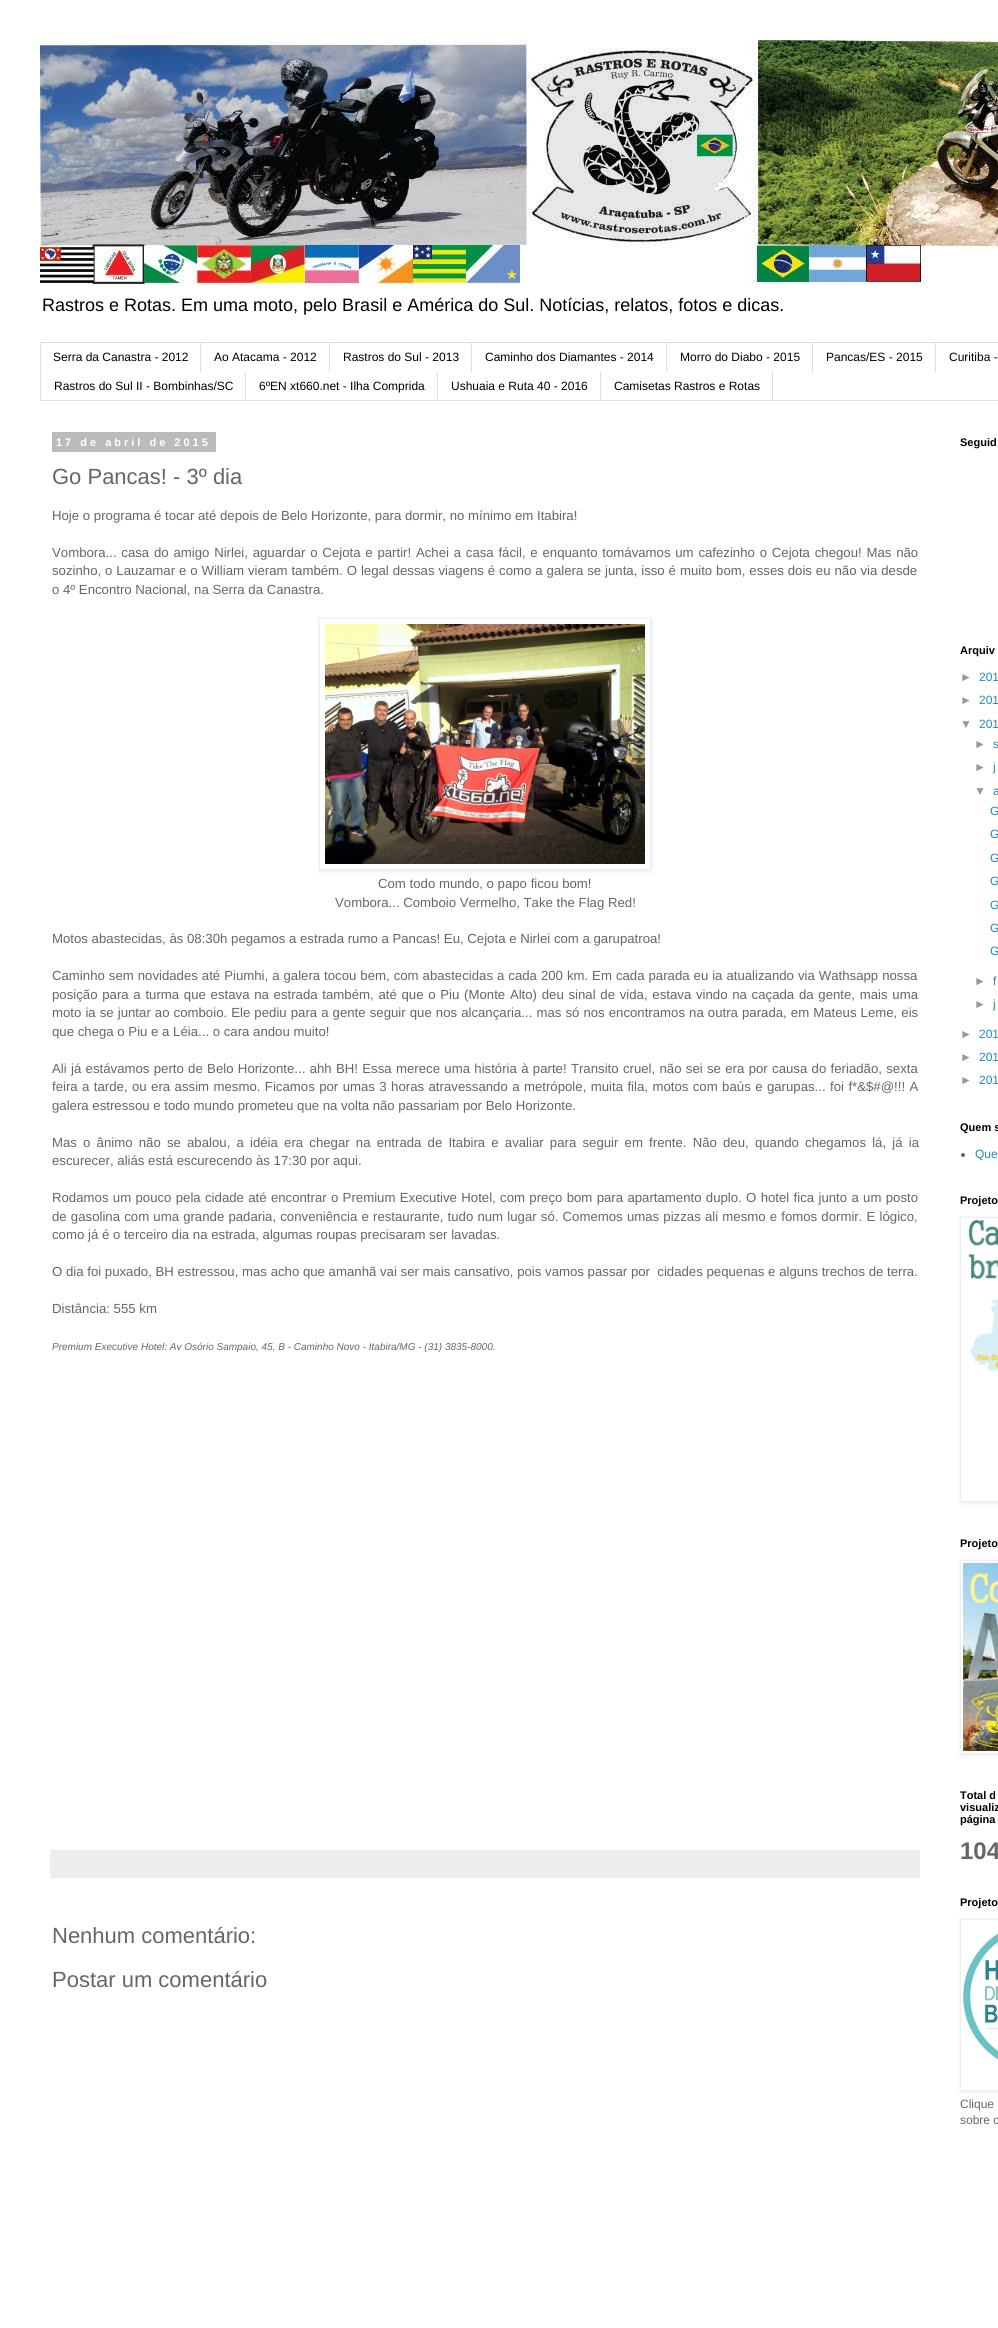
import math
import cairo

surface = cairo.ImageSurface(cairo.FORMAT_RGB24, 998, 2328)
ctx = cairo.Context(surface)
options = cairo.FontOptions()
options.set_hint_metrics(cairo.HINT_METRICS_OFF)
options.set_hint_style(cairo.HINT_STYLE_NONE)
ctx.set_font_options(options)
ctx.set_miter_limit(4)


def set_color(code):
    ctx.set_source_rgb(*(v / 255 for v in bytes.fromhex(code[-6:])))


def draw_text(x, y, s, family, size, color, bold=False, italic=False):
    ctx.select_font_face(family, cairo.FONT_SLANT_ITALIC if italic else cairo.FONT_SLANT_NORMAL, cairo.FONT_WEIGHT_BOLD if bold else cairo.FONT_WEIGHT_NORMAL)
    ctx.set_font_size(size)
    set_color(color)
    ctx.move_to(x, y)
    ctx.show_text(s)


def draw_spaced(x, y, s, letter, word):
    ctx.move_to(x, y)
    for ch in s:
        ctx.show_text(ch)
        ctx.rel_move_to(letter + word * (ch == ' '), 0)


def fill_rect(x, y, w, h, color):
    set_color(color)
    ctx.rectangle(x, y, w, h)
    ctx.fill()


def rounded_rect(x, y, w, h, r):
    ctx.new_sub_path()
    for i, (u, v) in enumerate([(x + w - r, y + h - r), (x + r, y + h - r), (x + r, y + r), (x + w - r, y + r)]):
        ctx.arc(u, v, r, i * math.pi / 2, (i + 1) * math.pi / 2)
    ctx.close_path()


def draw_shadow(x, y, w, h, r, blur, alpha):
    ctx.push_group_with_content(cairo.CONTENT_ALPHA)
    ctx.set_operator(cairo.OPERATOR_SOURCE)
    for i in range(15, -16, -2):
        e = blur * i / 6
        if min(w, h) + 2 * e > 0:
            ctx.set_source_rgba(0, 0, 0, alpha * math.erfc((i - 1) / 8.5) / 2)
            rounded_rect(x - e, y - e, w + 2 * e, h + 2 * e, max(0, min(r + e + blur * .6, min(w, h) / 2 + e)))
            ctx.fill()
    ctx.mask(ctx.pop_group())


def draw_image(path, x, y, w, h):
    ctx.save()
    ctx.set_source_surface(cairo.ImageSurface.create_from_png(path), x, y)
    ctx.rectangle(x, y, w, h)
    ctx.fill()
    ctx.restore()


set_color("#ffffff")
ctx.paint()
draw_image("assets/img1.png", 40, 40, 958, 244)
draw_text(42, 311, "Rastros e Rotas. Em uma moto, pelo Brasil e América do Sul. Notícias, relatos, fotos e dicas.", "Liberation Sans", 18, "#000000")
ctx.rectangle(40.5, 342.5, 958, 58)
set_color("#dddddd")
ctx.set_line_width(1)
ctx.stroke()
fill_rect(200, 343, 1, 29, "#dddddd")
draw_text(53, 361, "Serra da Canastra - 2012", "Liberation Sans", 12, "#000000")
fill_rect(329, 343, 1, 29, "#dddddd")
draw_text(214, 361, "Ao Atacama - 2012", "Liberation Sans", 12, "#000000")
fill_rect(471, 343, 1, 29, "#dddddd")
draw_text(343, 361, "Rastros do Sul - 2013", "Liberation Sans", 12, "#000000")
fill_rect(666, 343, 1, 29, "#dddddd")
draw_text(485, 361, "Caminho dos Diamantes - 2014", "Liberation Sans", 12, "#000000")
fill_rect(812, 343, 1, 29, "#dddddd")
draw_text(680, 361, "Morro do Diabo - 2015", "Liberation Sans", 12, "#000000")
fill_rect(935, 343, 1, 29, "#dddddd")
draw_text(826, 361, "Pancas/ES - 2015", "Liberation Sans", 12, "#000000")
draw_text(949, 361, "Curitiba -", "Liberation Sans", 12, "#000000")
fill_rect(245, 372, 1, 28, "#dddddd")
draw_text(54, 390, "Rastros do Sul II - Bombinhas/SC", "Liberation Sans", 12, "#000000")
fill_rect(437, 372, 1, 28, "#dddddd")
draw_text(259, 390, "6ºEN xt660.net - Ilha Comprida", "Liberation Sans", 12, "#000000")
fill_rect(600, 372, 1, 28, "#dddddd")
draw_text(451, 390, "Ushuaia e Ruta 40 - 2016", "Liberation Sans", 12, "#000000")
fill_rect(772, 372, 1, 28, "#dddddd")
draw_text(614, 390, "Camisetas Rastros e Rotas", "Liberation Sans", 12, "#000000")
fill_rect(52, 432, 164, 20, "#bbbbbb")
ctx.select_font_face("Liberation Sans", cairo.FONT_SLANT_NORMAL, cairo.FONT_WEIGHT_BOLD)
ctx.set_font_size(11)
set_color("#ffffff")
draw_spaced(56, 446, "17 de abril de 2015", 3, 0)
draw_text(52, 484, "Go Pancas! - 3º dia", "Liberation Sans", 22, "#666666")
draw_text(52, 520, "Hoje o programa é tocar até depois de Belo Horizonte, para dormir, no mínimo em Itabira!", "Liberation Sans", 13.2, "#666666")
draw_spaced(52, 557, "Vombora... casa do amigo Nirlei, aguardar o Cejota e partir! Achei a casa fácil, e enquanto tomávamos um cafezinho o Cejota chegou! Mas não", 0, 1.1)
draw_spaced(52, 575, "sozinho, o Lauzamar e o William vieram também. O legal dessas viagens é como a galera se junta, isso é muito bom, esses dois eu não via desde", 0, 0.25)
draw_text(52, 594, "o 4º Encontro Nacional, na Serra da Canastra.", "Liberation Sans", 13.2, "#666666")
ctx.save()
ctx.set_fill_rule(cairo.FILL_RULE_EVEN_ODD)
ctx.new_path()
ctx.move_to(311, 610)
ctx.line_to(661, 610)
ctx.line_to(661, 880)
ctx.line_to(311, 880)
ctx.close_path()
ctx.move_to(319, 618)
ctx.line_to(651, 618)
ctx.line_to(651, 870)
ctx.line_to(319, 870)
ctx.close_path()
ctx.clip()
set_color("#000000")
draw_shadow(320, 619, 332, 252, 0, 2.5, 0.1)
ctx.restore()
ctx.rectangle(319.5, 618.5, 331, 251)
set_color("#eeeeee")
ctx.stroke()
draw_image("assets/img2.png", 325, 624, 320, 240)
draw_text(378, 888, "Com todo mundo, o papo ficou bom!", "Liberation Sans", 13.2, "#666666")
draw_text(335, 907, "Vombora... Comboio Vermelho, Take the Flag Red!", "Liberation Sans", 13.2, "#666666")
draw_text(52, 943, "Motos abastecidas, às 08:30h pegamos a estrada rumo a Pancas! Eu, Cejota e Nirlei com a garupatroa!", "Liberation Sans", 13.2, "#666666")
draw_spaced(52, 980, "Caminho sem novidades até Piumhi, a galera tocou bem, com abastecidas a cada 200 km. Em cada parada eu ia atualizando via Wathsapp nossa", 0, 0.3)
draw_spaced(52, 999, "posição para a turma que estava na estrada também, até que o Piu (Monte Alto) deu sinal de vida, estava vindo na caçada da gente, mais uma", 0, 1.05)
draw_spaced(52, 1017, "moto ia se juntar ao comboio. Ele pediu para a gente seguir que nos alcançaria... mas só nos encontramos na outra parada, em Mateus Leme, eis", 0, 0.4)
draw_text(52, 1036, "que chega o Piu e a Léia... o cara andou muito!", "Liberation Sans", 13.2, "#666666")
draw_spaced(52, 1073, "Ali já estávamos perto de Belo Horizonte... ahh BH! Essa merece uma história à parte! Transito cruel, não sei se era por causa do feriadão, sexta", 0, 0.65)
draw_spaced(52, 1091, "feira a tarde, ou era assim mesmo. Ficamos por umas 3 horas atravessando a metrópole, muita fila, motos com baús e garupas... foi f*&$#@!!! A", 0, 0.75)
draw_text(52, 1110, "galera estressou e todo mundo prometeu que na volta não passariam por Belo Horizonte.", "Liberation Sans", 13.2, "#666666")
draw_spaced(52, 1147, "Mas o ânimo não se abalou, a idéia era chegar na entrada de Itabira e avaliar para seguir em frente. Não deu, quando chegamos lá, já ia", 0, 2.5)
draw_text(52, 1165, "escurecer, aliás está escurecendo às 17:30 por aqui.", "Liberation Sans", 13.2, "#666666")
draw_spaced(52, 1202, "Rodamos um pouco pela cidade até encontrar o Premium Executive Hotel, com preço bom para apartamento duplo. O hotel fica junto a um posto", 0, 0.65)
draw_spaced(52, 1221, "de gasolina com uma grande padaria, conveniência e restaurante, tudo num lugar só. Comemos umas pizzas ali mesmo e fomos dormir. E lógico,", 0, 0.5)
draw_text(52, 1239, "como já é o terceiro dia na estrada, algumas roupas precisaram ser lavadas.", "Liberation Sans", 13.2, "#666666")
draw_text(52, 1276, "O dia foi puxado, BH estressou, mas acho que amanhã vai ser mais cansativo, pois vamos passar por  cidades pequenas e alguns trechos de terra.", "Liberation Sans", 13.2, "#666666")
draw_text(52, 1313, "Distância: 555 km", "Liberation Sans", 13.2, "#666666")
draw_text(52, 1350, "Premium Executive Hotel: Av Osório Sampaio, 45, B - Caminho Novo - Itabira/MG - (31) 3835-8000.", "Liberation Sans", 10, "#666666", italic=True)
fill_rect(50, 1850, 870, 28, "#eeeeee")
draw_text(52, 1943, "Nenhum comentário:", "Liberation Sans", 22, "#666666")
draw_text(52, 1987, "Postar um comentário", "Liberation Sans", 22, "#666666")
draw_text(960, 446, "Seguid", "Liberation Sans", 11, "#000000", bold=True)
draw_text(960, 654, "Arquiv", "Liberation Sans", 11, "#000000", bold=True)
draw_text(960, 681, "►", "Liberation Sans", 12, "#999999")
draw_text(979, 681, "201", "Liberation Sans", 12, "#2288bb")
draw_text(960, 704, "►", "Liberation Sans", 12, "#999999")
draw_text(979, 704, "201", "Liberation Sans", 12, "#2288bb")
draw_text(960, 728, "▼", "Liberation Sans", 12, "#999999")
draw_text(979, 728, "201", "Liberation Sans", 12, "#2288bb")
draw_text(974, 748, "►", "Liberation Sans", 12, "#999999")
draw_text(993, 748, "s", "Liberation Sans", 12, "#2288bb")
draw_text(974, 771, "►", "Liberation Sans", 12, "#999999")
draw_text(993, 771, "j", "Liberation Sans", 12, "#2288bb")
draw_text(974, 795, "▼", "Liberation Sans", 12, "#999999")
draw_text(993, 795, "a", "Liberation Sans", 12, "#2288bb")
draw_text(990, 815, "G", "Liberation Sans", 12, "#2288bb")
draw_text(990, 838, "G", "Liberation Sans", 12, "#2288bb")
draw_text(990, 862, "G", "Liberation Sans", 12, "#2288bb")
draw_text(990, 885, "G", "Liberation Sans", 12, "#2288bb")
draw_text(990, 909, "G", "Liberation Sans", 12, "#2288bb")
draw_text(990, 932, "G", "Liberation Sans", 12, "#2288bb")
draw_text(990, 955, "G", "Liberation Sans", 12, "#2288bb")
draw_text(974, 985, "►", "Liberation Sans", 12, "#999999")
draw_text(993, 985, "f", "Liberation Sans", 12, "#2288bb")
draw_text(974, 1008, "►", "Liberation Sans", 12, "#999999")
draw_text(993, 1008, "j", "Liberation Sans", 12, "#2288bb")
draw_text(960, 1038, "►", "Liberation Sans", 12, "#999999")
draw_text(979, 1038, "201", "Liberation Sans", 12, "#2288bb")
draw_text(960, 1061, "►", "Liberation Sans", 12, "#999999")
draw_text(979, 1061, "201", "Liberation Sans", 12, "#2288bb")
draw_text(960, 1084, "►", "Liberation Sans", 12, "#999999")
draw_text(979, 1084, "201", "Liberation Sans", 12, "#2288bb")
draw_text(960, 1131, "Quem s", "Liberation Sans", 11, "#000000", bold=True)
set_color("#666666")
ctx.new_path()
ctx.arc(963, 1155, 2, 0, 2 * math.pi)
ctx.fill()
draw_text(975, 1158, "Que", "Liberation Sans", 12, "#2288bb")
draw_text(960, 1204, "Projeto", "Liberation Sans", 11, "#000000", bold=True)
ctx.save()
ctx.set_fill_rule(cairo.FILL_RULE_EVEN_ODD)
ctx.new_path()
ctx.move_to(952, 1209)
ctx.line_to(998, 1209)
ctx.line_to(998, 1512)
ctx.line_to(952, 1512)
ctx.close_path()
ctx.move_to(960, 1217)
ctx.line_to(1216, 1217)
ctx.line_to(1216, 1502)
ctx.line_to(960, 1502)
ctx.close_path()
ctx.clip()
set_color("#000000")
draw_shadow(961, 1218, 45, 285, 0, 2.5, 0.1)
ctx.restore()
ctx.rectangle(960.5, 1217.5, 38, 284)
set_color("#eeeeee")
ctx.stroke()
draw_image("assets/img3.png", 968, 1220, 30, 151)
draw_text(960, 1547, "Projeto", "Liberation Sans", 11, "#000000", bold=True)
ctx.save()
ctx.set_fill_rule(cairo.FILL_RULE_EVEN_ODD)
ctx.new_path()
ctx.move_to(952, 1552)
ctx.line_to(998, 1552)
ctx.line_to(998, 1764)
ctx.line_to(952, 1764)
ctx.close_path()
ctx.move_to(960, 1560)
ctx.line_to(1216, 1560)
ctx.line_to(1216, 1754)
ctx.line_to(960, 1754)
ctx.close_path()
ctx.clip()
set_color("#000000")
draw_shadow(961, 1561, 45, 194, 0, 2.5, 0.1)
ctx.restore()
ctx.rectangle(960.5, 1560.5, 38, 193)
set_color("#eeeeee")
ctx.stroke()
draw_image("assets/img4.png", 963, 1563, 35, 188)
draw_text(960, 1799, "Total d", "Liberation Sans", 11, "#000000", bold=True)
draw_text(960, 1811, "visualiz", "Liberation Sans", 11, "#000000", bold=True)
draw_text(960, 1823, "página", "Liberation Sans", 11, "#000000", bold=True)
draw_text(960, 1859, "104", "Liberation Sans", 24, "#666666", bold=True)
draw_text(960, 1906, "Projeto", "Liberation Sans", 11, "#000000", bold=True)
ctx.save()
ctx.set_fill_rule(cairo.FILL_RULE_EVEN_ODD)
ctx.new_path()
ctx.move_to(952, 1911)
ctx.line_to(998, 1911)
ctx.line_to(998, 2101)
ctx.line_to(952, 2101)
ctx.close_path()
ctx.move_to(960, 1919)
ctx.line_to(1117, 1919)
ctx.line_to(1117, 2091)
ctx.line_to(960, 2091)
ctx.close_path()
ctx.clip()
set_color("#000000")
draw_shadow(961, 1920, 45, 172, 0, 2.5, 0.1)
ctx.restore()
ctx.rectangle(960.5, 1919.5, 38, 171)
set_color("#eeeeee")
ctx.stroke()
draw_image("assets/img5.png", 963, 1933, 35, 127)
draw_text(960, 2108, "Clique", "Liberation Sans", 12, "#666666")
draw_text(960, 2124, "sobre c", "Liberation Sans", 12, "#666666")
surface.write_to_png("output.png")
